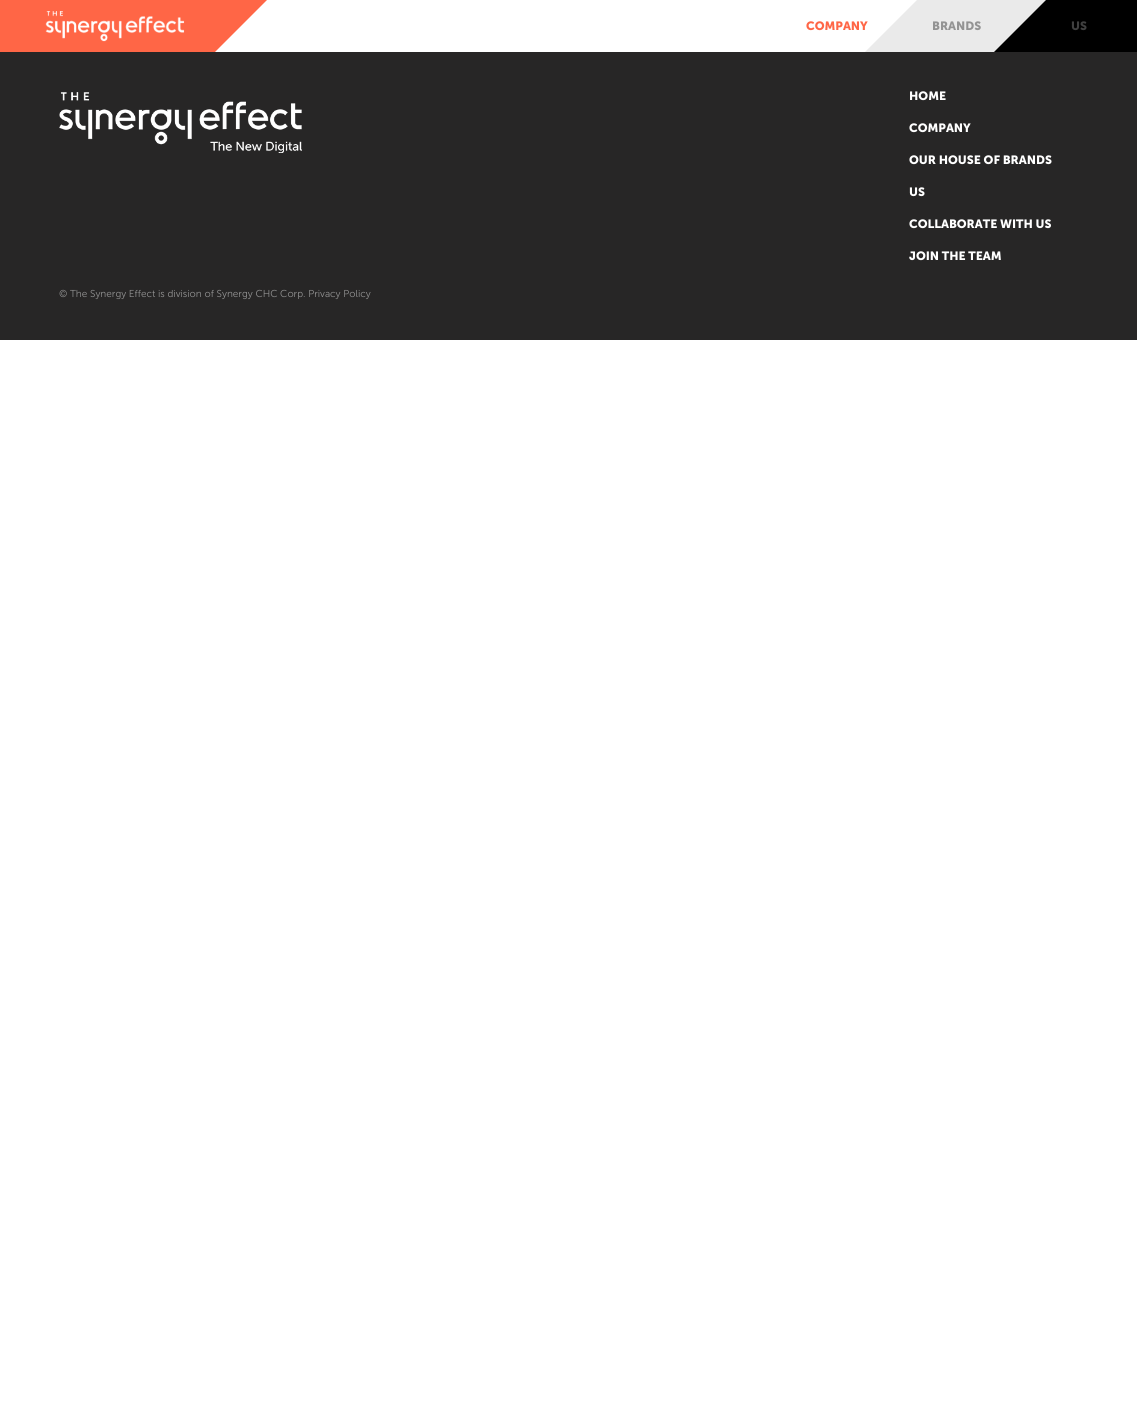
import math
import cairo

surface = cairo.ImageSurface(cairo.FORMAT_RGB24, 1137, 1417)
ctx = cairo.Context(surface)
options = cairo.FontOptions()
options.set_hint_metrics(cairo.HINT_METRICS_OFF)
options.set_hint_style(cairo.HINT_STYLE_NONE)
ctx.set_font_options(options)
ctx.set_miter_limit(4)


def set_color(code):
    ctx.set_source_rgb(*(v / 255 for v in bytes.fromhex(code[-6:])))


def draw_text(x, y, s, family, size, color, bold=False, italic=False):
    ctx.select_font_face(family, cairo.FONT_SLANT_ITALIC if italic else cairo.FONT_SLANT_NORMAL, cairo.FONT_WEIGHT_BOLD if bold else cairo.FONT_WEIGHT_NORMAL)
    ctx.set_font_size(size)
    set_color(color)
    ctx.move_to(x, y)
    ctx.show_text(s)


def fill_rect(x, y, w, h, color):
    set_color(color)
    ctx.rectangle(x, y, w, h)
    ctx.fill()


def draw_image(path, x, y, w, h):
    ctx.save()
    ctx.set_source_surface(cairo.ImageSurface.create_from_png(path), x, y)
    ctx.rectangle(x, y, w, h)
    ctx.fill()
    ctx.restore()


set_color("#ffffff")
ctx.paint()
fill_rect(0, 0, 215, 52, "#ff6646")
draw_image("assets/img1.png", 45, 11, 140, 31)
ctx.new_path()
ctx.move_to(215, 0)
ctx.line_to(267, 0)
ctx.line_to(215, 52)
ctx.close_path()
ctx.fill()
draw_text(806, 30, "COMPANY", "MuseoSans", 12, "#ff6646", bold=True)
fill_rect(917, 0, 129, 52, "#eaeaea")
ctx.new_path()
ctx.move_to(917, 52)
ctx.line_to(865, 52)
ctx.line_to(917, 0)
ctx.close_path()
ctx.fill()
draw_text(932, 30, "BRANDS", "MuseoSans", 12, "#939393", bold=True)
fill_rect(1046, 0, 91, 52, "#000000")
ctx.new_path()
ctx.move_to(1046, 52)
ctx.line_to(994, 52)
ctx.line_to(1046, 0)
ctx.close_path()
ctx.fill()
draw_text(1071, 30, "US", "MuseoSans", 12, "#404040", bold=True)
fill_rect(0, 52, 1137, 288, "#272626")
draw_image("assets/img2.png", 59, 92, 243, 61)
draw_text(909, 100, "HOME", "MuseoSans", 12, "#ffffff", bold=True)
draw_text(909, 132, "COMPANY", "MuseoSans", 12, "#ffffff", bold=True)
draw_text(909, 164, "OUR HOUSE OF BRANDS", "MuseoSans", 12, "#ffffff", bold=True)
draw_text(909, 196, "US", "MuseoSans", 12, "#ffffff", bold=True)
draw_text(909, 228, "COLLABORATE WITH US", "MuseoSans", 12, "#ffffff", bold=True)
draw_text(909, 260, "JOIN THE TEAM", "MuseoSans", 12, "#ffffff", bold=True)
draw_text(59, 297, "© The Synergy Effect is division of Synergy CHC Corp. Privacy Policy", "MuseoSans Light", 10, "#939393")
surface.write_to_png("output.png")
